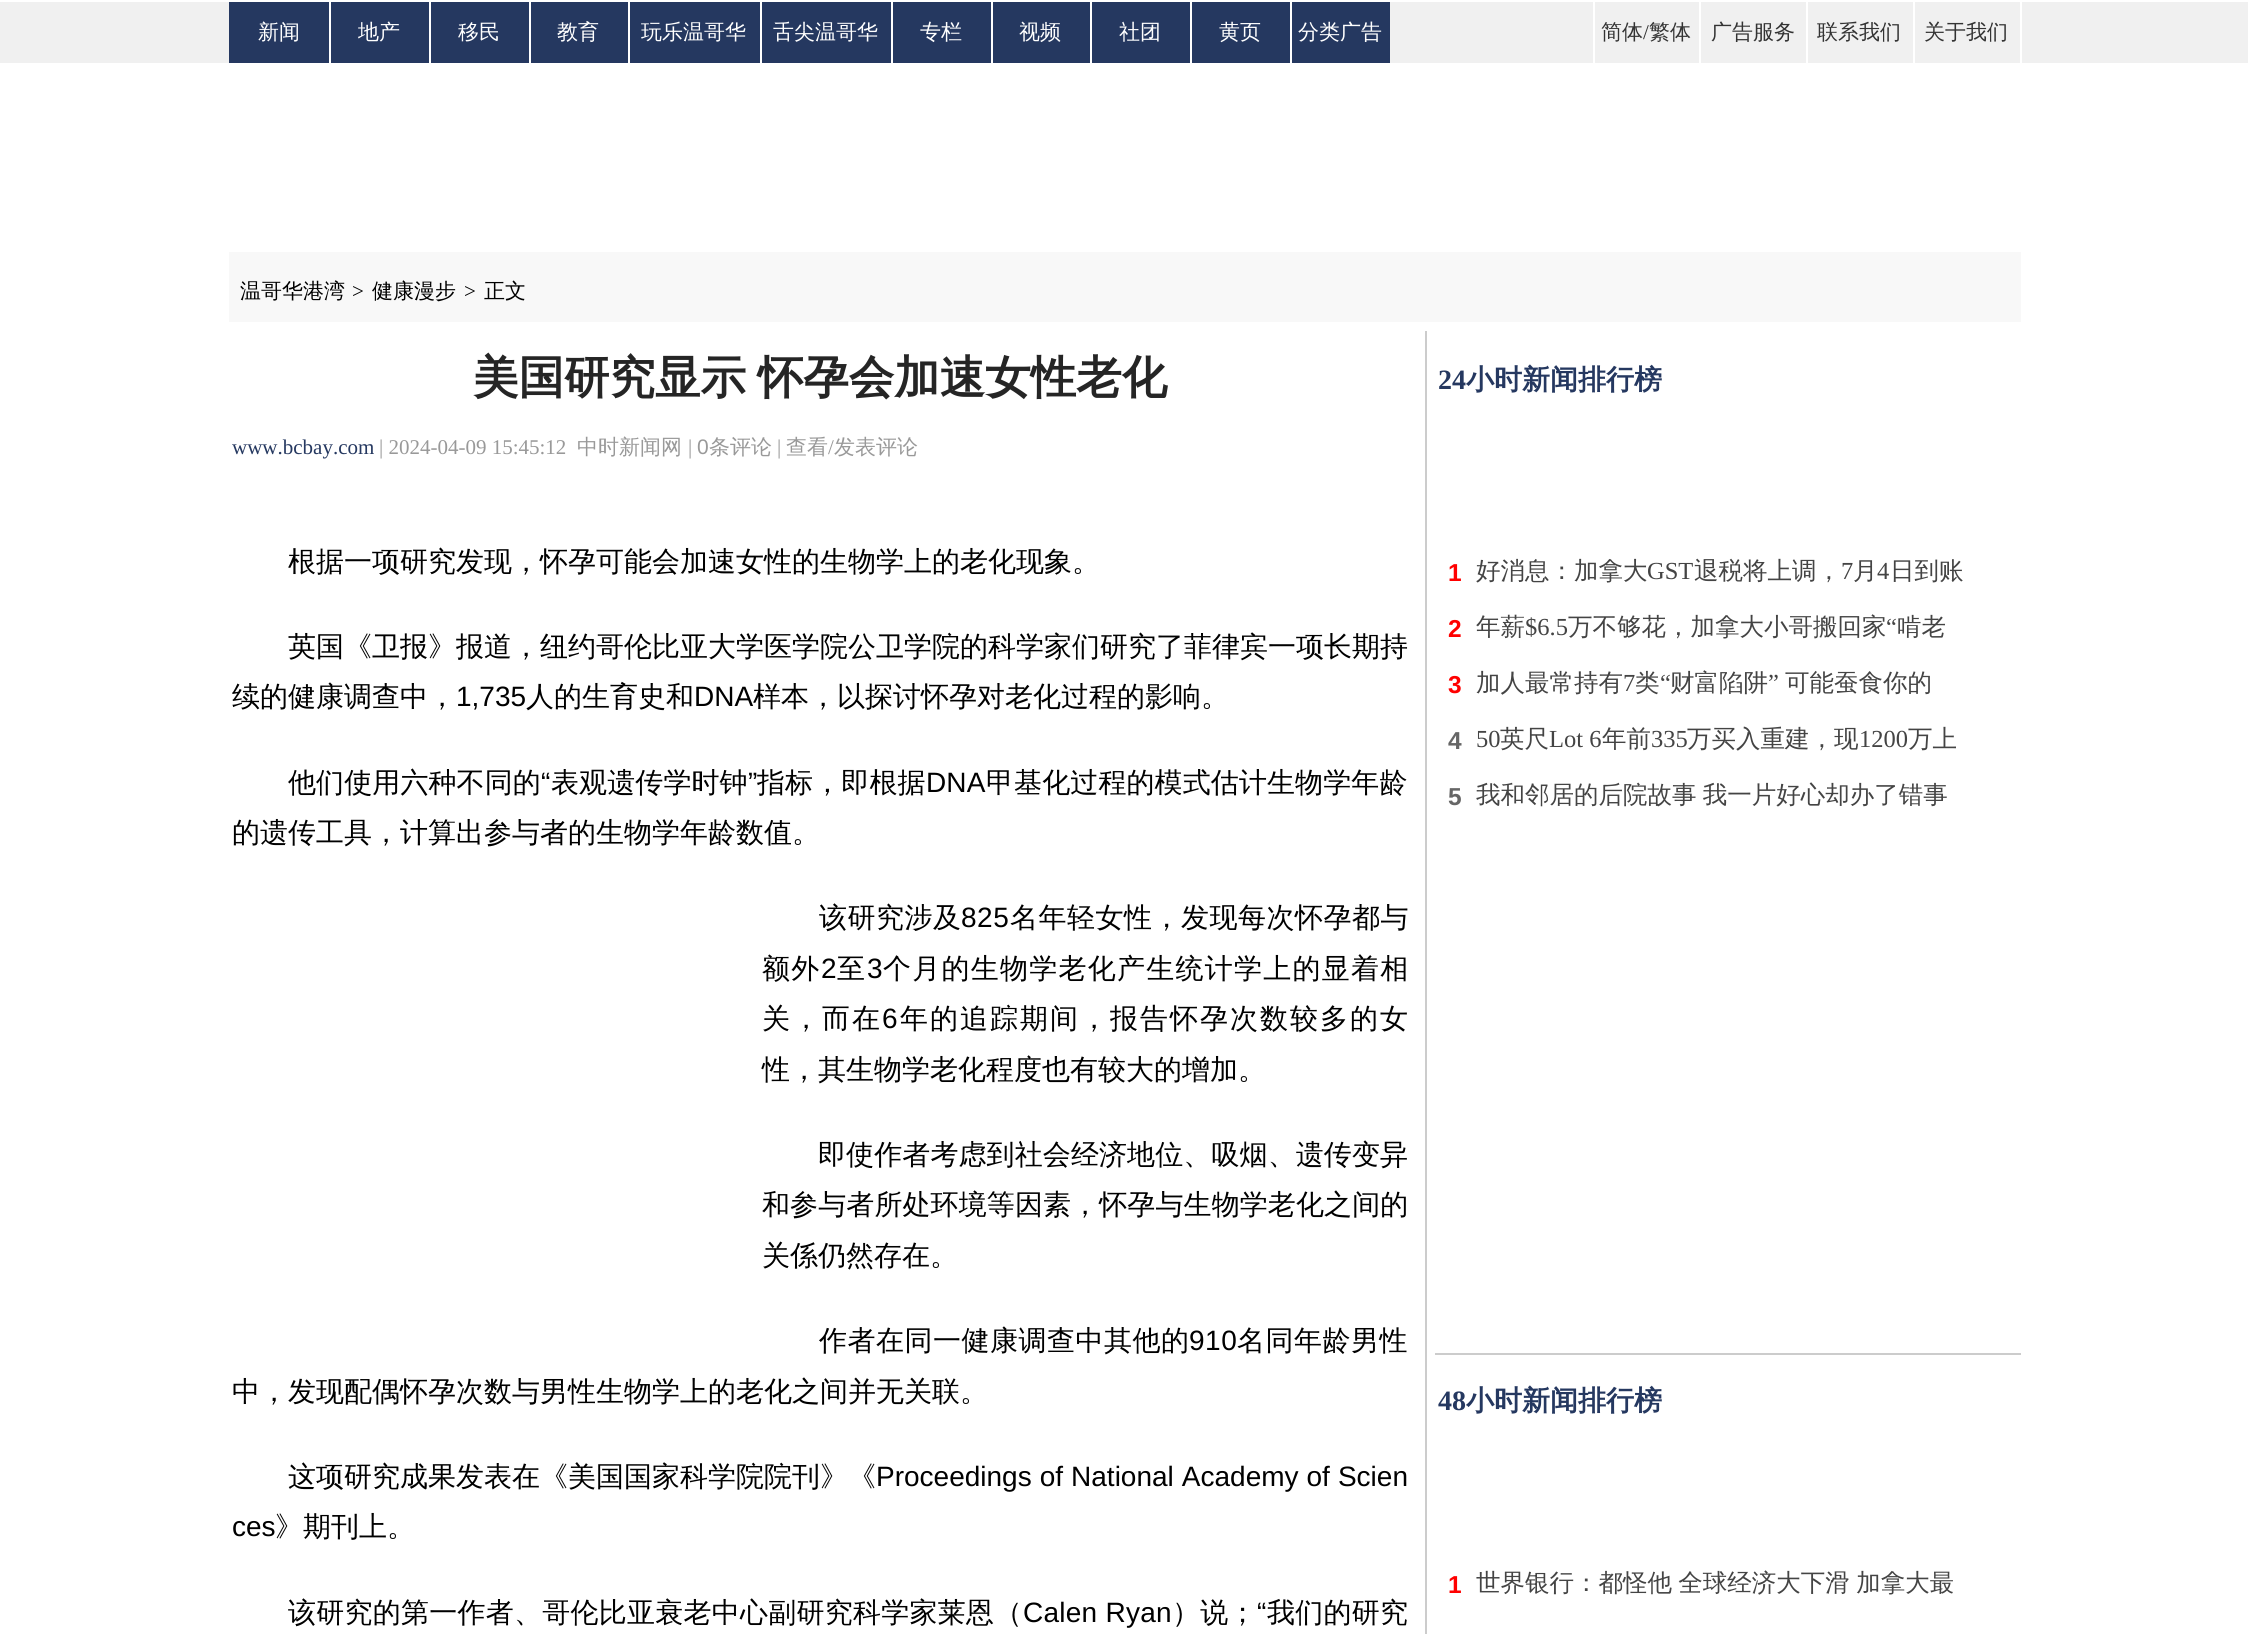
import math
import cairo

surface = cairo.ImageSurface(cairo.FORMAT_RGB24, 2248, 1634)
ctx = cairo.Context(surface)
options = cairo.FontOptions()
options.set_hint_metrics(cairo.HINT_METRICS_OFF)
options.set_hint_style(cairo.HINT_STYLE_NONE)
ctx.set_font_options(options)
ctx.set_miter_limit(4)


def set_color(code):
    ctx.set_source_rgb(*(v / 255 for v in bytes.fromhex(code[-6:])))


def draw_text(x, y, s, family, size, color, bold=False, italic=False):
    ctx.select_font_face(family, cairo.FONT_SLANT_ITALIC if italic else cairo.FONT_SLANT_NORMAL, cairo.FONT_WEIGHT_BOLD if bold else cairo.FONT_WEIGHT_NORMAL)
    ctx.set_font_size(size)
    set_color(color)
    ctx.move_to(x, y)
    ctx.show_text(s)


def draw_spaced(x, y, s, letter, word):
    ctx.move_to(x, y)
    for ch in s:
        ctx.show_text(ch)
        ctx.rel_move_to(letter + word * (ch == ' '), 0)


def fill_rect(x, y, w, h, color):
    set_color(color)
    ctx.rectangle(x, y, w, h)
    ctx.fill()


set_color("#ffffff")
ctx.paint()
fill_rect(0, 2, 2248, 61, "#f0f0f0")
fill_rect(229, 2, 100, 61, "#253860")
draw_text(258, 39, "新闻", "WenQuanYi Zen Hei Medium", 21, "#ffffff")
fill_rect(331, 2, 98, 61, "#253860")
fill_rect(329, 2, 2, 61, "#ffffff")
draw_text(358, 39, "地产", "WenQuanYi Zen Hei Medium", 21, "#ffffff")
fill_rect(431, 2, 98, 61, "#253860")
fill_rect(429, 2, 2, 61, "#ffffff")
draw_text(458, 39, "移民", "WenQuanYi Zen Hei Medium", 21, "#ffffff")
fill_rect(531, 2, 97, 61, "#253860")
fill_rect(529, 2, 2, 61, "#ffffff")
draw_text(557, 39, "教育", "WenQuanYi Zen Hei Medium", 21, "#ffffff")
fill_rect(630, 2, 130, 61, "#253860")
fill_rect(628, 2, 2, 61, "#ffffff")
draw_text(641, 39, "玩乐温哥华", "WenQuanYi Zen Hei Medium", 21, "#ffffff")
fill_rect(762, 2, 129, 61, "#253860")
fill_rect(760, 2, 2, 61, "#ffffff")
draw_text(773, 39, "舌尖温哥华", "WenQuanYi Zen Hei Medium", 21, "#ffffff")
fill_rect(893, 2, 98, 61, "#253860")
fill_rect(891, 2, 2, 61, "#ffffff")
draw_text(920, 39, "专栏", "WenQuanYi Zen Hei Medium", 21, "#ffffff")
fill_rect(993, 2, 97, 61, "#253860")
fill_rect(991, 2, 2, 61, "#ffffff")
draw_text(1019, 39, "视频", "WenQuanYi Zen Hei Medium", 21, "#ffffff")
fill_rect(1092, 2, 98, 61, "#253860")
fill_rect(1090, 2, 2, 61, "#ffffff")
draw_text(1119, 39, "社团", "WenQuanYi Zen Hei Medium", 21, "#ffffff")
fill_rect(1192, 2, 98, 61, "#253860")
fill_rect(1190, 2, 2, 61, "#ffffff")
draw_text(1219, 39, "黄页", "WenQuanYi Zen Hei Medium", 21, "#ffffff")
fill_rect(1292, 2, 98, 61, "#253860")
fill_rect(1290, 2, 2, 61, "#ffffff")
draw_text(1298, 39, "分类广告", "WenQuanYi Zen Hei Medium", 21, "#ffffff")
fill_rect(1593, 2, 2, 61, "#ffffff")
draw_text(1601, 39, "简体", "WenQuanYi Zen Hei Medium", 21, "#333333")
draw_text(1643, 39, "/", "Liberation Serif", 21, "#333333")
draw_text(1649, 39, "繁体", "WenQuanYi Zen Hei Medium", 21, "#333333")
fill_rect(1699, 2, 2, 61, "#ffffff")
draw_text(1711, 39, "广告服务", "WenQuanYi Zen Hei Medium", 21, "#333333")
fill_rect(1806, 2, 2, 61, "#ffffff")
draw_text(1817, 39, "联系我们", "WenQuanYi Zen Hei Medium", 21, "#333333")
fill_rect(2020, 2, 2, 61, "#ffffff")
fill_rect(1913, 2, 2, 61, "#ffffff")
draw_text(1924, 39, "关于我们", "WenQuanYi Zen Hei Medium", 21, "#333333")
fill_rect(229, 252, 1792, 70, "#f8f8f8")
draw_text(240, 298, "温哥华港湾", "WenQuanYi Zen Hei Medium", 21, "#000000")
draw_text(352, 298, ">", "Liberation Serif", 21, "#000000")
draw_text(372, 298, "健康漫步", "WenQuanYi Zen Hei Medium", 21, "#000000")
draw_text(464, 298, ">", "Liberation Serif", 21, "#000000")
draw_text(484, 298, "正文", "WenQuanYi Zen Hei Medium", 21, "#000000")
ctx.select_font_face("WenQuanYi Zen Hei", cairo.FONT_SLANT_NORMAL, cairo.FONT_WEIGHT_BOLD)
ctx.set_font_size(45.5)
set_color("#252525")
draw_spaced(473, 393, "美国研究显示 怀孕会加速女性老化", 0, -2)
draw_text(232, 454, "www.bcbay.com", "Liberation Serif", 21, "#253860")
draw_text(379, 454, "| 2024-04-09 15:45:12", "Liberation Serif", 21, "#999999")
draw_text(577, 454, "中时新闻网", "WenQuanYi Zen Hei Medium", 21, "#999999")
draw_text(688, 454, "|", "Liberation Serif", 21, "#999999")
draw_text(697, 454, "0", "Liberation Sans", 21, "#999999")
draw_text(709, 454, "条评论", "WenQuanYi Zen Hei Medium", 21, "#999999")
draw_text(777, 454, "|", "Liberation Serif", 21, "#999999")
draw_text(786, 454, "查看", "WenQuanYi Zen Hei Medium", 21, "#999999")
draw_text(828, 454, "/", "Liberation Serif", 21, "#999999")
draw_text(834, 454, "发表评论", "WenQuanYi Zen Hei Medium", 21, "#999999")
draw_text(288, 571, "根据一项研究发现，怀孕可能会加速女性的生物学上的老化现象。", "WenQuanYi Zen Hei Medium", 28, "#000000")
draw_text(288, 656, "英国《卫报》报道，纽约哥伦比亚大学医学院公卫学院的科学家们研究了菲律宾一项长期持", "WenQuanYi Zen Hei Medium", 28, "#000000")
draw_text(232, 706, "续的健康调查中，", "WenQuanYi Zen Hei Medium", 28, "#000000")
draw_text(456, 706, "1,735", "Liberation Sans", 28, "#000000")
draw_text(526, 706, "人的生育史和", "WenQuanYi Zen Hei Medium", 28, "#000000")
draw_text(694, 706, "DNA", "Liberation Sans", 28, "#000000")
draw_text(753, 706, "样本，以探讨怀孕对老化过程的影响。", "WenQuanYi Zen Hei Medium", 28, "#000000")
draw_spaced(288, 792, "他们使用六种不同的", 0.1, 0)
ctx.select_font_face("Liberation Sans")
draw_spaced(541, 792, "“", 0.1, 0)
ctx.select_font_face("WenQuanYi Zen Hei Medium")
draw_spaced(551, 792, "表观遗传学时钟", 0.1, 0)
ctx.select_font_face("Liberation Sans")
draw_spaced(748, 792, "”", 0.1, 0)
ctx.select_font_face("WenQuanYi Zen Hei Medium")
draw_spaced(757, 792, "指标，即根据", 0.1, 0)
ctx.select_font_face("Liberation Sans")
draw_spaced(926, 792, "DNA", 0.1, 0)
ctx.select_font_face("WenQuanYi Zen Hei Medium")
draw_spaced(986, 792, "甲基化过程的模式估计生物学年龄", 0.1, 0)
draw_text(232, 842, "的遗传工具，计算出参与者的生物学年龄数值。", "WenQuanYi Zen Hei Medium", 28, "#000000")
draw_spaced(819, 927, "该研究涉及", 0.5, 0)
ctx.select_font_face("Liberation Sans")
draw_spaced(961, 927, "825", 0.5, 0)
ctx.select_font_face("WenQuanYi Zen Hei Medium")
draw_spaced(1010, 927, "名年轻女性，发现每次怀孕都与", 0.5, 0)
draw_spaced(762, 978, "额外", 1.25, 0)
ctx.select_font_face("Liberation Sans")
draw_spaced(821, 978, "2", 1.25, 0)
ctx.select_font_face("WenQuanYi Zen Hei Medium")
draw_spaced(837, 978, "至", 1.25, 0)
ctx.select_font_face("Liberation Sans")
draw_spaced(867, 978, "3", 1.25, 0)
ctx.select_font_face("WenQuanYi Zen Hei Medium")
draw_spaced(883, 978, "个月的生物学老化产生统计学上的显着相", 1.25, 0)
draw_spaced(762, 1028, "关，而在", 2, 0)
ctx.select_font_face("Liberation Sans")
draw_spaced(882, 1028, "6", 2, 0)
ctx.select_font_face("WenQuanYi Zen Hei Medium")
draw_spaced(900, 1028, "年的追踪期间，报告怀孕次数较多的女", 2, 0)
draw_text(762, 1079, "性，其生物学老化程度也有较大的增加。", "WenQuanYi Zen Hei Medium", 28, "#000000")
draw_spaced(818, 1164, "即使作者考虑到社会经济地位、吸烟、遗传变异", 0.1, 0)
draw_spaced(762, 1214, "和参与者所处环境等因素，怀孕与生物学老化之间的", 0.1, 0)
draw_text(762, 1265, "关係仍然存在。", "WenQuanYi Zen Hei Medium", 28, "#000000")
draw_spaced(819, 1350, "作者在同一健康调查中其他的", 0.5, 0)
ctx.select_font_face("Liberation Sans")
draw_spaced(1189, 1350, "910", 0.5, 0)
ctx.select_font_face("WenQuanYi Zen Hei Medium")
draw_spaced(1237, 1350, "名同年龄男性", 0.5, 0)
draw_text(232, 1401, "中，发现配偶怀孕次数与男性生物学上的老化之间并无关联。", "WenQuanYi Zen Hei Medium", 28, "#000000")
draw_text(288, 1486, "这项研究成果发表在《美国国家科学院院刊》《", "WenQuanYi Zen Hei Medium", 28, "#000000")
ctx.select_font_face("Liberation Sans")
draw_spaced(876, 1486, "Proceedings of National Academy of Scien", 0, 0.25)
draw_text(232, 1536, "ces", "Liberation Sans", 28, "#000000")
draw_text(275, 1536, "》期刊上。", "WenQuanYi Zen Hei Medium", 28, "#000000")
draw_spaced(288, 1622, "该研究的第一作者、哥伦比亚衰老中心副研究科学家莱恩（", 0.25, 0)
ctx.select_font_face("Liberation Sans")
draw_spaced(1023, 1622, "Calen Ryan", 0.25, 0)
ctx.select_font_face("WenQuanYi Zen Hei Medium")
draw_spaced(1172, 1622, "）说；", 0.25, 0)
ctx.select_font_face("Liberation Sans")
draw_spaced(1257, 1622, "“", 0.25, 0)
ctx.select_font_face("WenQuanYi Zen Hei Medium")
draw_spaced(1267, 1622, "我们的研究", 0.25, 0)
fill_rect(1425, 331, 2, 1303, "#cccccc")
draw_text(1438, 389, "24", "Liberation Serif", 28, "#253860", bold=True)
draw_text(1466, 389, "小时新闻排行榜", "WenQuanYi Zen Hei", 28, "#253860", bold=True)
draw_text(1448, 581, "1", "Liberation Sans", 24.5, "#ff0000", bold=True)
draw_text(1476, 579, "好消息：加拿大", "WenQuanYi Zen Hei Medium", 24.5, "#444444")
draw_text(1647, 579, "GST", "Liberation Serif", 24.5, "#444444")
draw_text(1694, 579, "退税将上调，", "WenQuanYi Zen Hei Medium", 24.5, "#444444")
draw_text(1841, 579, "7", "Liberation Serif", 24.5, "#444444")
draw_text(1853, 579, "月", "WenQuanYi Zen Hei Medium", 24.5, "#444444")
draw_text(1877, 579, "4", "Liberation Serif", 24.5, "#444444")
draw_text(1890, 579, "日到账", "WenQuanYi Zen Hei Medium", 24.5, "#444444")
draw_text(1448, 637, "2", "Liberation Sans", 24.5, "#ff0000", bold=True)
draw_text(1476, 635, "年薪", "WenQuanYi Zen Hei Medium", 24.5, "#444444")
draw_text(1525, 635, "$6.5", "Liberation Serif", 24.5, "#444444")
draw_text(1568, 635, "万不够花，加拿大小哥搬回家", "WenQuanYi Zen Hei Medium", 24.5, "#444444")
draw_text(1886, 635, "“", "Liberation Serif", 24.5, "#444444")
draw_text(1897, 635, "啃老", "WenQuanYi Zen Hei Medium", 24.5, "#444444")
draw_text(1448, 693, "3", "Liberation Sans", 24.5, "#ff0000", bold=True)
draw_text(1476, 691, "加人最常持有", "WenQuanYi Zen Hei Medium", 24.5, "#444444")
draw_text(1623, 691, "7", "Liberation Serif", 24.5, "#444444")
draw_text(1635, 691, "类", "WenQuanYi Zen Hei Medium", 24.5, "#444444")
draw_text(1660, 691, "“", "Liberation Serif", 24.5, "#444444")
draw_text(1670, 691, "财富陷阱", "WenQuanYi Zen Hei Medium", 24.5, "#444444")
draw_text(1768, 691, "”", "Liberation Serif", 24.5, "#444444")
draw_text(1785, 691, "可能蚕食你的", "WenQuanYi Zen Hei Medium", 24.5, "#444444")
draw_text(1448, 749, "4", "Liberation Sans", 24.5, "#666666", bold=True)
draw_text(1476, 747, "50", "Liberation Serif", 24.5, "#444444")
draw_text(1500, 747, "英尺", "WenQuanYi Zen Hei Medium", 24.5, "#444444")
draw_text(1549, 747, "Lot 6", "Liberation Serif", 24.5, "#444444")
draw_text(1602, 747, "年前", "WenQuanYi Zen Hei Medium", 24.5, "#444444")
draw_text(1651, 747, "335", "Liberation Serif", 24.5, "#444444")
draw_text(1687, 747, "万买入重建，现", "WenQuanYi Zen Hei Medium", 24.5, "#444444")
draw_text(1859, 747, "1200", "Liberation Serif", 24.5, "#444444")
draw_text(1908, 747, "万上", "WenQuanYi Zen Hei Medium", 24.5, "#444444")
draw_text(1448, 805, "5", "Liberation Sans", 24.5, "#666666", bold=True)
ctx.select_font_face("WenQuanYi Zen Hei Medium")
set_color("#444444")
draw_spaced(1476, 803, "我和邻居的后院故事 我一片好心却办了错事", 0, -1)
fill_rect(1435, 1353, 586, 2, "#cccccc")
draw_text(1438, 1410, "48", "Liberation Serif", 28, "#253860", bold=True)
draw_text(1466, 1410, "小时新闻排行榜", "WenQuanYi Zen Hei", 28, "#253860", bold=True)
draw_text(1448, 1593, "1", "Liberation Sans", 24.5, "#ff0000", bold=True)
ctx.select_font_face("WenQuanYi Zen Hei Medium")
set_color("#444444")
draw_spaced(1476, 1591, "世界银行：都怪他 全球经济大下滑 加拿大最", 0, -1)
surface.write_to_png("output.png")
